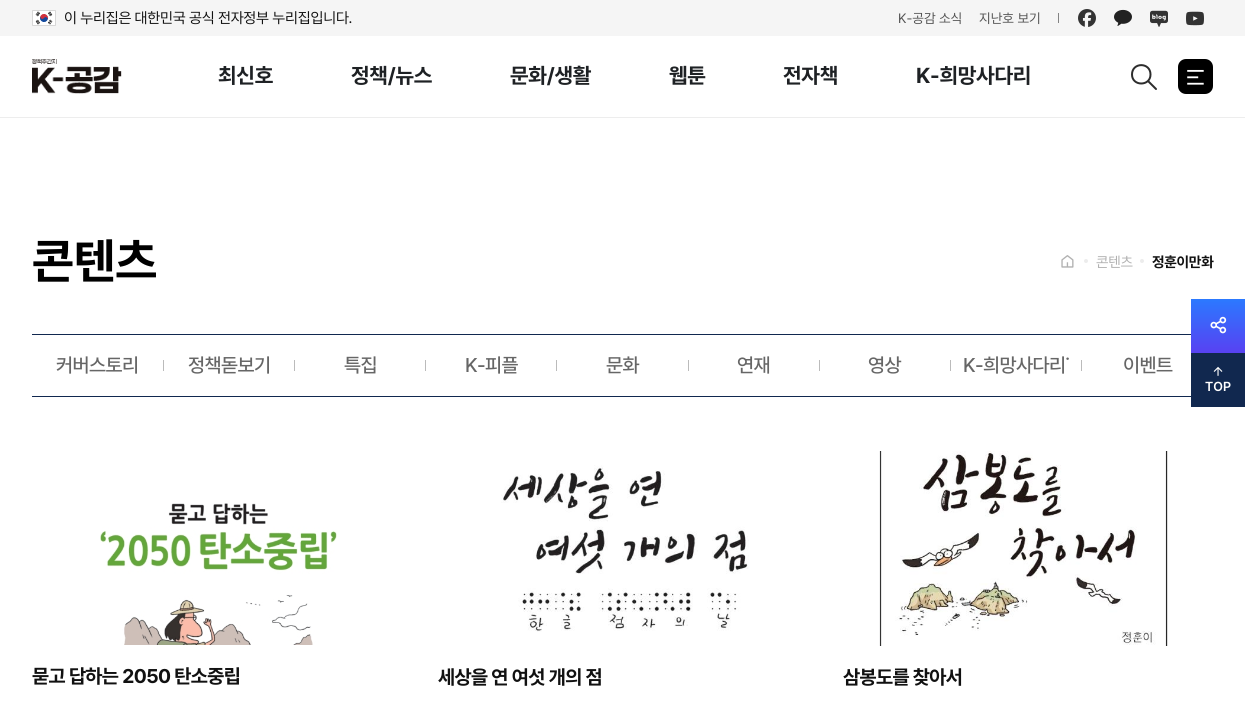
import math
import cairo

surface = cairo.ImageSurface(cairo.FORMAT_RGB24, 1245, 705)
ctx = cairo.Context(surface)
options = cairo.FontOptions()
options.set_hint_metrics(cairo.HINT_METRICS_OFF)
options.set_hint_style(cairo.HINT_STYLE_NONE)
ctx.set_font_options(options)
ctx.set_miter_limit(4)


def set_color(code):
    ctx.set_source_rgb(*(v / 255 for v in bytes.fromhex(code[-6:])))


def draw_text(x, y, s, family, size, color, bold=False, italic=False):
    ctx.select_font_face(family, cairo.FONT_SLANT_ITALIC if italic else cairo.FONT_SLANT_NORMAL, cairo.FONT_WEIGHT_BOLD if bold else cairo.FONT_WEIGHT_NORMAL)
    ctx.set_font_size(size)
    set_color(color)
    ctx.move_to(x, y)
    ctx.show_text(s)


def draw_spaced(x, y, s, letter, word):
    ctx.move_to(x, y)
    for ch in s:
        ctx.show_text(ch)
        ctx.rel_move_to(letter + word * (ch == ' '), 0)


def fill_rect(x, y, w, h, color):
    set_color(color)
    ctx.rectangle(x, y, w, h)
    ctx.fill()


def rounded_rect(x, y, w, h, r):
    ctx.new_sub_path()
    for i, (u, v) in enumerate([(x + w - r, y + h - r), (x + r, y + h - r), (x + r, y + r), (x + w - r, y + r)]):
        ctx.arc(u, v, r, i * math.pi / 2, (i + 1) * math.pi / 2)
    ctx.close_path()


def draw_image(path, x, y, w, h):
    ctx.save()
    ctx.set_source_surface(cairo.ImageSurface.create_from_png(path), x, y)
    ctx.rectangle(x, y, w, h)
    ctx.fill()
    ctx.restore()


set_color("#ffffff")
ctx.paint()
fill_rect(0, 117, 1245, 1, "#ededed")
fill_rect(0, 0, 1245, 36, "#f5f5f5")
draw_image("assets/img1.png", 32, 10, 24, 16)
ctx.select_font_face("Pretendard")
ctx.set_font_size(15)
set_color("#111111")
draw_spaced(64, 23, "이 누리집은 대한민국 공식 전자정부 누리집입니다.", -0.25, 0)
draw_text(898, 23, "K-공감 소식", "Pretendard", 13.5, "#535353")
draw_text(979, 23, "지난호 보기", "Pretendard", 13.5, "#535353")
fill_rect(1058, 13, 1, 10, "#838383")
draw_image("assets/img2.png", 1078, 9, 18, 18)
draw_image("assets/img3.png", 1114, 9, 18, 17)
draw_image("assets/img4.png", 1150, 10, 18, 17)
draw_image("assets/img5.png", 1186, 11, 18, 15)
draw_image("assets/img6.png", 32, 59, 90, 35)
ctx.select_font_face("Pretendard", cairo.FONT_SLANT_NORMAL, cairo.FONT_WEIGHT_BOLD)
ctx.set_font_size(21.5)
set_color("#1e2124")
draw_spaced(218, 83, "최신호", -0.25, 0)
draw_spaced(351, 83, "정책/뉴스", -0.25, 0)
draw_spaced(510, 83, "문화/생활", -0.25, 0)
draw_spaced(669, 83, "웹툰", -0.25, 0)
draw_spaced(783, 83, "전자책", -0.25, 0)
draw_spaced(916, 83, "K-희망사다리", -0.25, 0)
ctx.new_path()
ctx.move_to(1156, 89)
ctx.line_to(1148, 81)
ctx.move_to(1132, 74.5)
ctx.curve_to(1132, 86.5, 1150.5, 86.5, 1150.5, 74.5)
ctx.curve_to(1150.5, 62, 1132, 62, 1132, 74.5)
ctx.close_path()
set_color("#2d2d2d")
ctx.set_line_cap(cairo.LINE_CAP_ROUND)
ctx.set_line_join(cairo.LINE_JOIN_ROUND)
ctx.stroke()
set_color("#000000")
rounded_rect(1178, 59, 35, 35, 8)
ctx.fill()
draw_image("assets/img7.png", 1187, 69, 17, 16)
ctx.set_font_size(48.5)
draw_spaced(32, 278, "콘텐츠", -0.25, 0)
draw_image("assets/img8.png", 1061, 255, 13, 13)
set_color("#ececec")
ctx.arc(1086, 261, 2, 0, 2 * math.pi)
ctx.fill()
ctx.select_font_face("Pretendard")
ctx.set_font_size(14.5)
set_color("#b1b1b1")
draw_spaced(1096, 267, "콘텐츠", -0.25, 0)
set_color("#ececec")
ctx.new_path()
ctx.arc(1142, 261, 2, 0, 2 * math.pi)
ctx.fill()
ctx.select_font_face("Pretendard", cairo.FONT_SLANT_NORMAL, cairo.FONT_WEIGHT_BOLD)
set_color("#111111")
draw_spaced(1152, 267, "정훈이만화", -0.25, 0)
fill_rect(32, 334, 1159, 1, "#11284f")
fill_rect(32, 396, 1159, 1, "#11284f")
ctx.select_font_face("Pretendard Medium")
ctx.set_font_size(19.75)
set_color("#666666")
draw_spaced(56, 372, "커버스토리", -0.6, 0)
fill_rect(163, 360, 1, 11, "#bbbbbb")
set_color("#666666")
draw_spaced(188, 372, "정책돋보기", -0.6, 0)
fill_rect(294, 360, 1, 11, "#bbbbbb")
set_color("#666666")
draw_spaced(344, 372, "특집", -0.6, 0)
fill_rect(425, 360, 1, 11, "#bbbbbb")
set_color("#666666")
draw_spaced(465, 372, "K-피플", -0.6, 0)
fill_rect(556, 360, 1, 11, "#bbbbbb")
set_color("#666666")
draw_spaced(606, 372, "문화", -0.6, 0)
fill_rect(688, 360, 1, 11, "#bbbbbb")
set_color("#666666")
draw_spaced(737, 372, "연재", -0.6, 0)
fill_rect(819, 360, 1, 11, "#bbbbbb")
set_color("#666666")
draw_spaced(868, 372, "영상", -0.6, 0)
fill_rect(950, 360, 1, 11, "#bbbbbb")
set_color("#666666")
draw_spaced(963, 372, "K-희망사다리˙", -0.6, 0)
fill_rect(1081, 360, 1, 11, "#bbbbbb")
set_color("#666666")
draw_spaced(1123, 372, "이벤트", -0.6, 0)
draw_image("assets/img9.png", 100, 503, 237, 142)
ctx.select_font_face("Pretendard", cairo.FONT_SLANT_NORMAL, cairo.FONT_WEIGHT_BOLD)
set_color("#111111")
draw_spaced(32, 683, "묻고 답하는 2050 탄소중립", -0.6, 0)
draw_image("assets/img10.png", 501, 465, 248, 167)
draw_spaced(438, 684, "세상을 연 여섯 개의 점", -0.6, 0)
draw_image("assets/img11.png", 879, 451, 289, 195)
draw_spaced(843, 684, "삼봉도를 찾아서", -0.6, 0)
gradient = cairo.LinearGradient(1218, 299, 1218, 353)
gradient.add_color_stop_rgba(0, 0.169, 0.475, 1, 1)
gradient.add_color_stop_rgba(1, 0.345, 0.255, 0.949, 1)
ctx.set_source(gradient)
ctx.rectangle(1191, 299, 54, 54)
ctx.fill()
draw_image("assets/img12.png", 1210, 316, 17, 18)
fill_rect(1191, 353, 54, 54, "#11284f")
draw_image("assets/img13.png", 1213, 366, 10, 10)
draw_text(1205, 391, "TOP", "Pretendard SemiBold", 13, "#ffffff")
surface.write_to_png("output.png")
